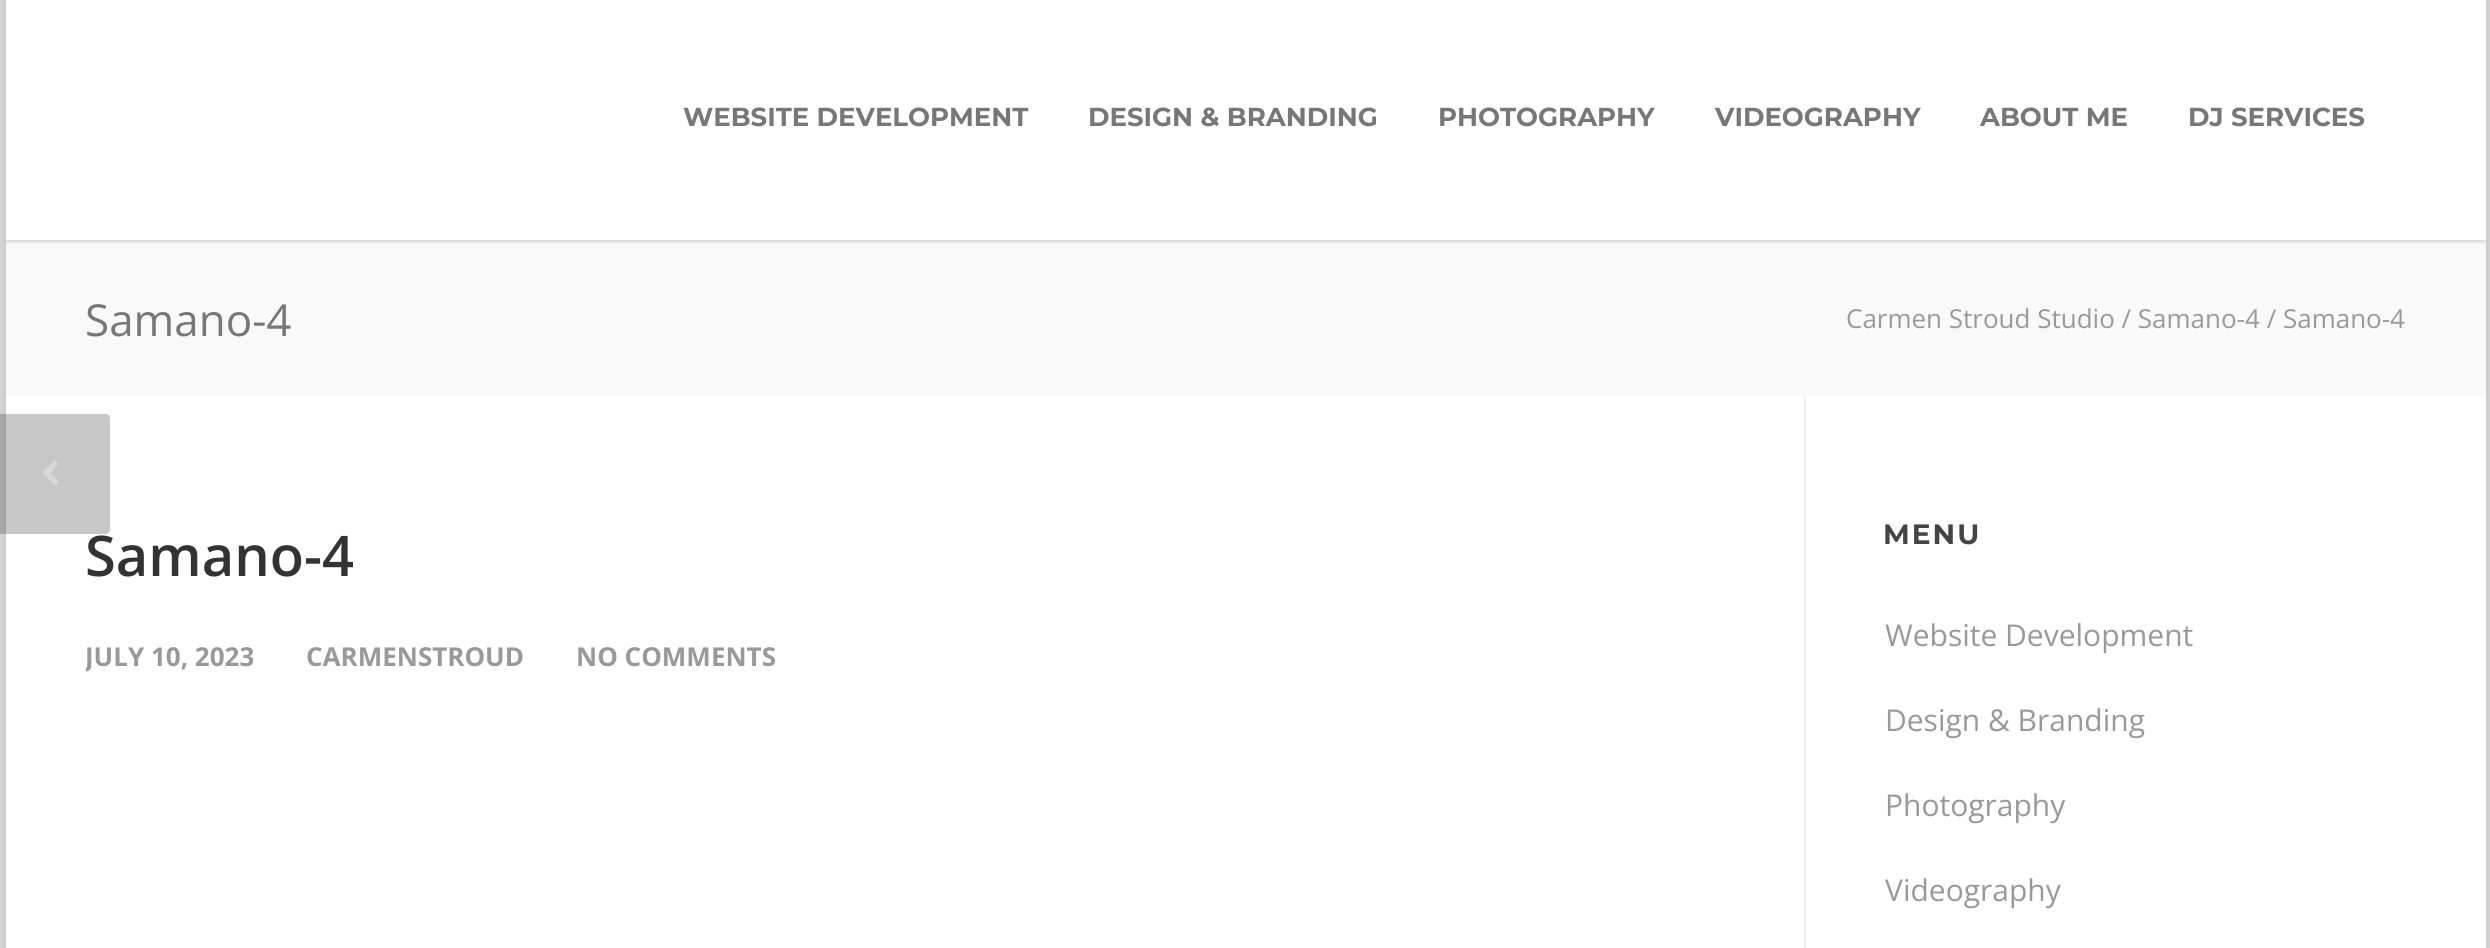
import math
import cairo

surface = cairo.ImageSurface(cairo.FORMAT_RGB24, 2490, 948)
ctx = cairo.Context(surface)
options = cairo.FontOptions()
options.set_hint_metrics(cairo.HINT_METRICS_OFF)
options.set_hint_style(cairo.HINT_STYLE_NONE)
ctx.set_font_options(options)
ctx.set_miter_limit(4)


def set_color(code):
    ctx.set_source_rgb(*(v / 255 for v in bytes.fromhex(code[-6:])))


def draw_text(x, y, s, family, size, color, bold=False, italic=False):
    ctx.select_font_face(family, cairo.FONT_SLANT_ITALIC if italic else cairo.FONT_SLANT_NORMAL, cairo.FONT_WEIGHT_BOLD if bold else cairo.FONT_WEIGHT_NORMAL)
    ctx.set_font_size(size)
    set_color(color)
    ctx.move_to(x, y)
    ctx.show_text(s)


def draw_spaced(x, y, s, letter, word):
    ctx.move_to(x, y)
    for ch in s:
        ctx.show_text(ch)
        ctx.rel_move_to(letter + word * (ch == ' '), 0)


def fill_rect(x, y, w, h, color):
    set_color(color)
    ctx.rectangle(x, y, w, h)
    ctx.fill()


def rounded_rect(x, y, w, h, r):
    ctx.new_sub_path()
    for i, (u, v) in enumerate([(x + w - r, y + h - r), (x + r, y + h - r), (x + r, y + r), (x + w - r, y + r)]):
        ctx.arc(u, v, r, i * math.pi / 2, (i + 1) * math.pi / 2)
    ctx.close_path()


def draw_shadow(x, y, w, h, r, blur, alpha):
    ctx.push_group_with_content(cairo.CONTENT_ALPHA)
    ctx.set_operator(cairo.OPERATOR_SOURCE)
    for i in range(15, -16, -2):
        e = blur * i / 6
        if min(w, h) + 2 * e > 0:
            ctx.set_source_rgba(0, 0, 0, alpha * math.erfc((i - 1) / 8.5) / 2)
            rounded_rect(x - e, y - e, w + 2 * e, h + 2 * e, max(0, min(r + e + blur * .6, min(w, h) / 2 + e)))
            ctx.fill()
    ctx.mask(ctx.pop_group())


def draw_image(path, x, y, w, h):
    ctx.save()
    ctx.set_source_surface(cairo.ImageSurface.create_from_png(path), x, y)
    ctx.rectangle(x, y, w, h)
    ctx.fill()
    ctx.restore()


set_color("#dddddd")
ctx.paint()
set_color("#000000")
draw_shadow(6, 0, 2480, 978, 0, 10, 0.15)
fill_rect(6, 0, 2480, 948, "#ffffff")
fill_rect(6, 240, 2480, 156, "#f9f9f9")
ctx.save()
ctx.rectangle(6, 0, 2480, 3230)
ctx.clip()
ctx.rectangle(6, 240, 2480, 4)
ctx.clip()
set_color("#000000")
draw_shadow(6, 2, 2480, 240, 0, 2, 0.15)
ctx.restore()
draw_text(683, 126, "WEBSITE DEVELOPMENT", "Montserrat", 26, "#777777", bold=True)
draw_text(1088, 126, "DESIGN & BRANDING", "Montserrat", 26, "#777777", bold=True)
draw_text(1438, 126, "PHOTOGRAPHY", "Montserrat", 26, "#777777", bold=True)
draw_text(1715, 126, "VIDEOGRAPHY", "Montserrat", 26, "#777777", bold=True)
draw_text(1980, 126, "ABOUT ME", "Montserrat", 26, "#777777", bold=True)
draw_text(2188, 126, "DJ SERVICES", "Montserrat", 26, "#777777", bold=True)
draw_text(85, 336, "Samano-4", "Open Sans", 44, "#777777")
draw_text(1846, 328, "Carmen Stroud Studio / Samano-4 / Samano-4", "Open Sans", 26, "#999999")
fill_rect(1804, 396, 2, 552, "#efefef")
ctx.set_source_rgba(0.267, 0.267, 0.267, 0.3)
ctx.new_path()
ctx.move_to(-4, 414)
ctx.line_to(106, 414)
ctx.curve_to(108, 414, 110, 416, 110, 418)
ctx.line_to(110, 530)
ctx.curve_to(110, 532, 108, 534, 106, 534)
ctx.line_to(-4, 534)
ctx.close_path()
ctx.fill()
draw_image("assets/img1.png", 42, 460, 17, 26)
draw_text(85, 576, "Samano-4", "Open Sans SemiBold", 56, "#333333")
ctx.save()
ctx.rectangle(86, 516, 1638, 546)
ctx.clip()
draw_text(85, 666, "JULY 10, 2023", "Open Sans", 26, "#999999", bold=True)
ctx.restore()
draw_text(306, 666, "CARMENSTROUD", "Open Sans", 26, "#999999", bold=True)
draw_text(576, 666, "NO COMMENTS", "Open Sans", 26, "#999999", bold=True)
ctx.select_font_face("Montserrat", cairo.FONT_SLANT_NORMAL, cairo.FONT_WEIGHT_BOLD)
ctx.set_font_size(28)
set_color("#444444")
draw_spaced(1883, 544, "MENU", 2, 0)
draw_text(1885, 646, "Website Development", "Open Sans", 30, "#999999")
draw_text(1885, 731, "Design & Branding", "Open Sans", 30, "#999999")
draw_text(1885, 816, "Photography", "Open Sans", 30, "#999999")
draw_text(1885, 901, "Videography", "Open Sans", 30, "#999999")
surface.write_to_png("output.png")
